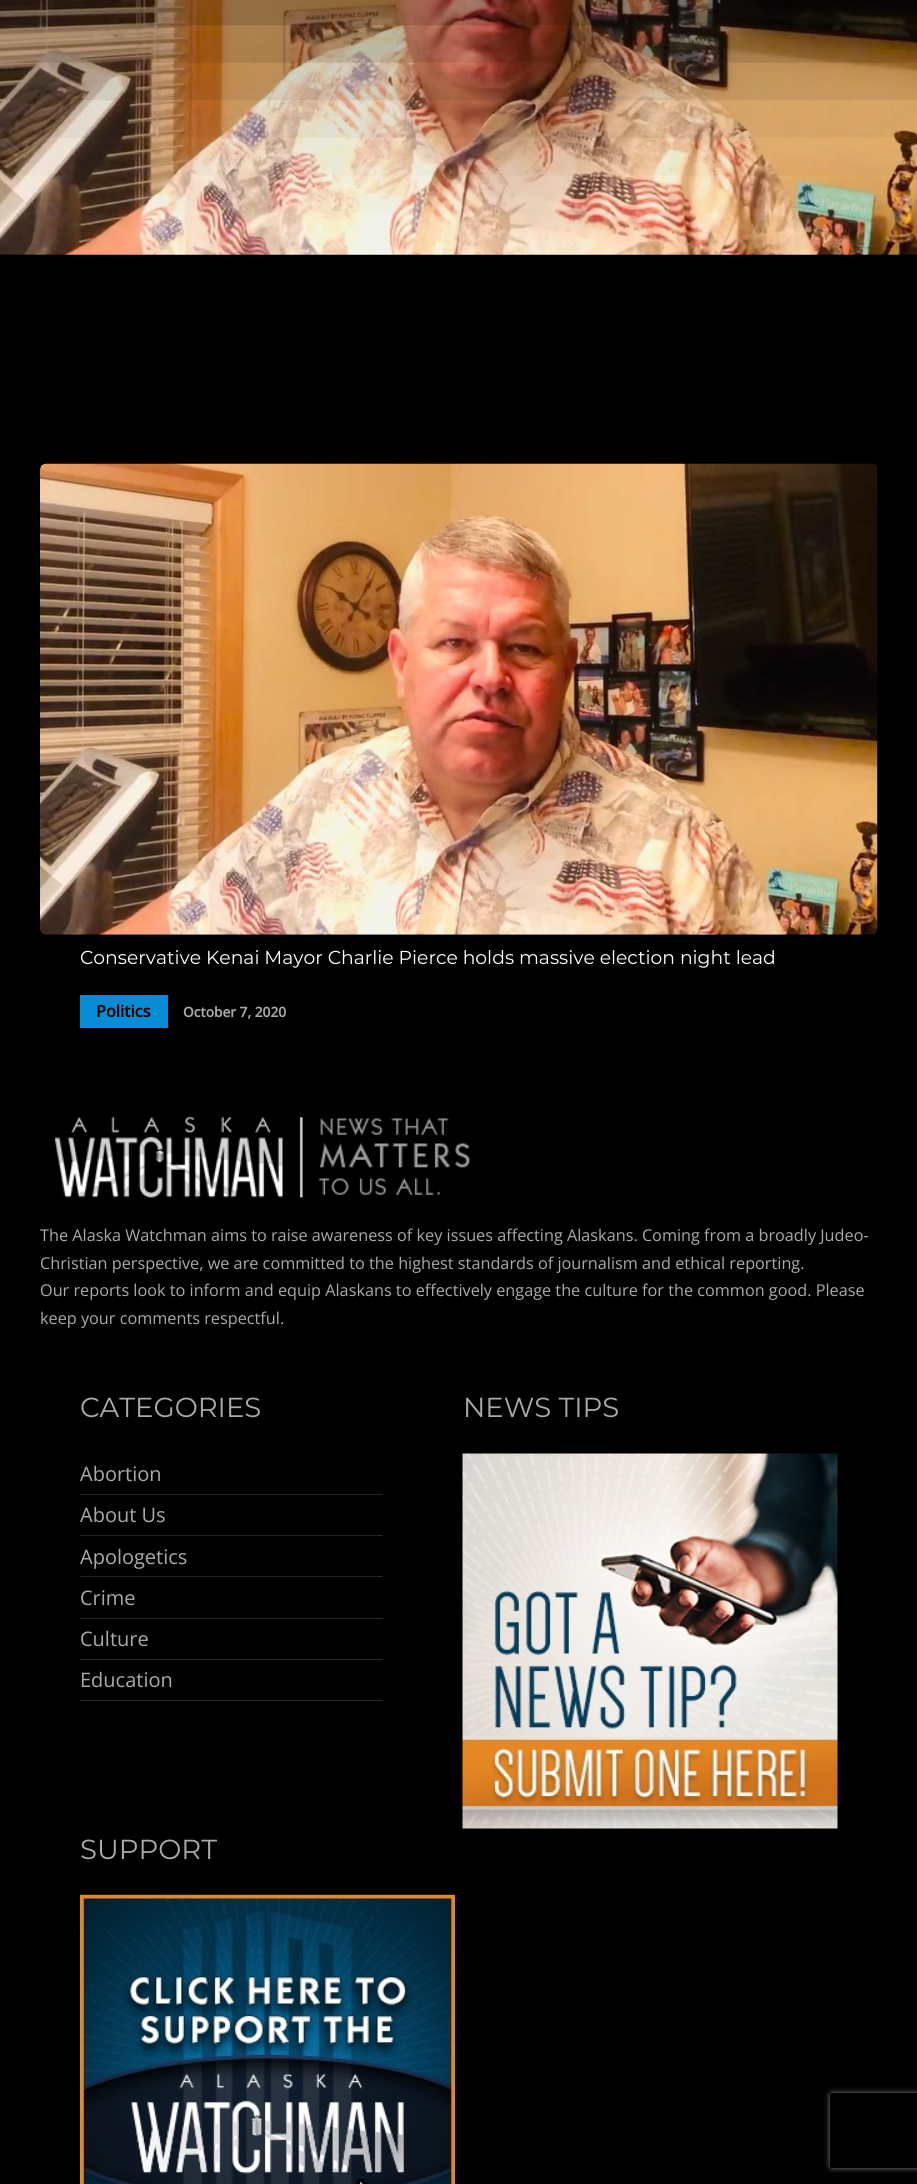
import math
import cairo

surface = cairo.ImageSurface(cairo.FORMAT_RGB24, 917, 2184)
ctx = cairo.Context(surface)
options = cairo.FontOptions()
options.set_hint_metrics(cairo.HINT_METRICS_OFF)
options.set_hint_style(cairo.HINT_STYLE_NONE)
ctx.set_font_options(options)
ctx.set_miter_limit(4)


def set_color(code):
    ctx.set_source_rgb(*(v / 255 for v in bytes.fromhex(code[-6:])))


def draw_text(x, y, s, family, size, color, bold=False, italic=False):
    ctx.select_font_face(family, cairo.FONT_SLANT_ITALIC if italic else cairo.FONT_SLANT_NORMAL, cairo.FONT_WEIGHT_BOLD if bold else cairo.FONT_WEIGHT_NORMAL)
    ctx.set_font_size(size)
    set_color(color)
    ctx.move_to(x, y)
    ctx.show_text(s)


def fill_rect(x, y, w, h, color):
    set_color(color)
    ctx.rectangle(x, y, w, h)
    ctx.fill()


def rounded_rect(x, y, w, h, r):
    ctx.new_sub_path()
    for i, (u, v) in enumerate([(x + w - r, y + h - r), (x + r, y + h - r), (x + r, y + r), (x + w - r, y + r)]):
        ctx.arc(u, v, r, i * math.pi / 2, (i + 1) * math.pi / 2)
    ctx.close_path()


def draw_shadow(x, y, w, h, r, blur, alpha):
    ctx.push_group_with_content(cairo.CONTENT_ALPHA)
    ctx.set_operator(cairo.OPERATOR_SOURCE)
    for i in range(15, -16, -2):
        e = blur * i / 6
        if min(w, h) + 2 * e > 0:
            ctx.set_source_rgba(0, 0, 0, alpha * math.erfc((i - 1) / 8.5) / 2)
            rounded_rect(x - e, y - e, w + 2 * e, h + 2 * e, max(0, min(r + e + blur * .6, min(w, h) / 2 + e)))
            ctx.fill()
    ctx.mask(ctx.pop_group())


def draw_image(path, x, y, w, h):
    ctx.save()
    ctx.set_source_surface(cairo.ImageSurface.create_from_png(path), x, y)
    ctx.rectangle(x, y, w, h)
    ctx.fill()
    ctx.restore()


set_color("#000000")
ctx.paint()
draw_image("assets/img1.png", 0, 0, 917, 255)
draw_shadow(-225, -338, 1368, 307, 0, 112.5, 0.96)
draw_image("assets/img2.png", 40, 463, 838, 472)
draw_text(80, 964, "Conservative Kenai Mayor Charlie Pierce holds massive election night lead", "Montserrat", 18.75, "#ffffff")
set_color("#068dd5")
rounded_rect(80, 995, 88, 33, 1)
ctx.fill()
draw_text(96, 1017, "Politics", "Open Sans", 16.25, "#000000", bold=True)
draw_text(183, 1017, "October 7, 2020", "Open Sans", 13.75, "#aaaaaa", bold=True)
draw_image("assets/img3.png", 54, 1117, 417, 81)
draw_text(40, 1241, "The Alaska Watchman aims to raise awareness of key issues affecting Alaskans. Coming from a broadly Judeo-", "Open Sans", 16.25, "#aaaaaa")
draw_text(40, 1269, "Christian perspective, we are committed to the highest standards of journalism and ethical reporting.", "Open Sans", 16.25, "#aaaaaa")
draw_text(40, 1296, "Our reports look to inform and equip Alaskans to effectively engage the culture for the common good. Please", "Open Sans", 16.25, "#aaaaaa")
draw_text(40, 1324, "keep your comments respectful.", "Open Sans", 16.25, "#aaaaaa")
draw_text(80, 1417, "CATEGORIES", "Montserrat", 27.5, "#aaaaaa")
fill_rect(80, 1494, 303, 1, "#262626")
draw_text(80, 1481, "Abortion", "Open Sans", 20, "#aaaaaa")
fill_rect(80, 1535, 303, 1, "#262626")
draw_text(80, 1522, "About Us", "Open Sans", 20, "#aaaaaa")
fill_rect(80, 1576, 303, 1, "#262626")
draw_text(80, 1564, "Apologetics", "Open Sans", 20, "#aaaaaa")
fill_rect(80, 1618, 303, 1, "#262626")
draw_text(80, 1605, "Crime", "Open Sans", 20, "#aaaaaa")
fill_rect(80, 1659, 303, 1, "#262626")
draw_text(80, 1646, "Culture", "Open Sans", 20, "#aaaaaa")
fill_rect(80, 1700, 303, 1, "#262626")
draw_text(80, 1687, "Education", "Open Sans", 20, "#aaaaaa")
draw_text(463, 1417, "NEWS TIPS", "Montserrat", 27.5, "#aaaaaa")
draw_image("assets/img4.png", 462, 1453, 376, 376)
draw_text(80, 1859, "SUPPORT", "Montserrat", 27.5, "#aaaaaa")
draw_image("assets/img5.png", 80, 1894, 375, 290)
ctx.save()
ctx.set_fill_rule(cairo.FILL_RULE_EVEN_ODD)
ctx.new_path()
ctx.move_to(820, 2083)
ctx.line_to(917, 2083)
ctx.line_to(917, 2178)
ctx.line_to(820, 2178)
ctx.close_path()
ctx.move_to(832.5, 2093)
ctx.line_to(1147.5, 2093)
ctx.curve_to(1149, 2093, 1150, 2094, 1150, 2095.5)
ctx.line_to(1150, 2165.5)
ctx.curve_to(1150, 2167, 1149, 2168, 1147.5, 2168)
ctx.line_to(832.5, 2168)
ctx.curve_to(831, 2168, 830, 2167, 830, 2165.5)
ctx.line_to(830, 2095.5)
ctx.curve_to(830, 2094, 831, 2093, 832.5, 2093)
ctx.close_path()
ctx.clip()
set_color("#808080")
draw_shadow(830, 2093, 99, 75, 2.5, 3, 1)
ctx.restore()
surface.write_to_png("output.png")
